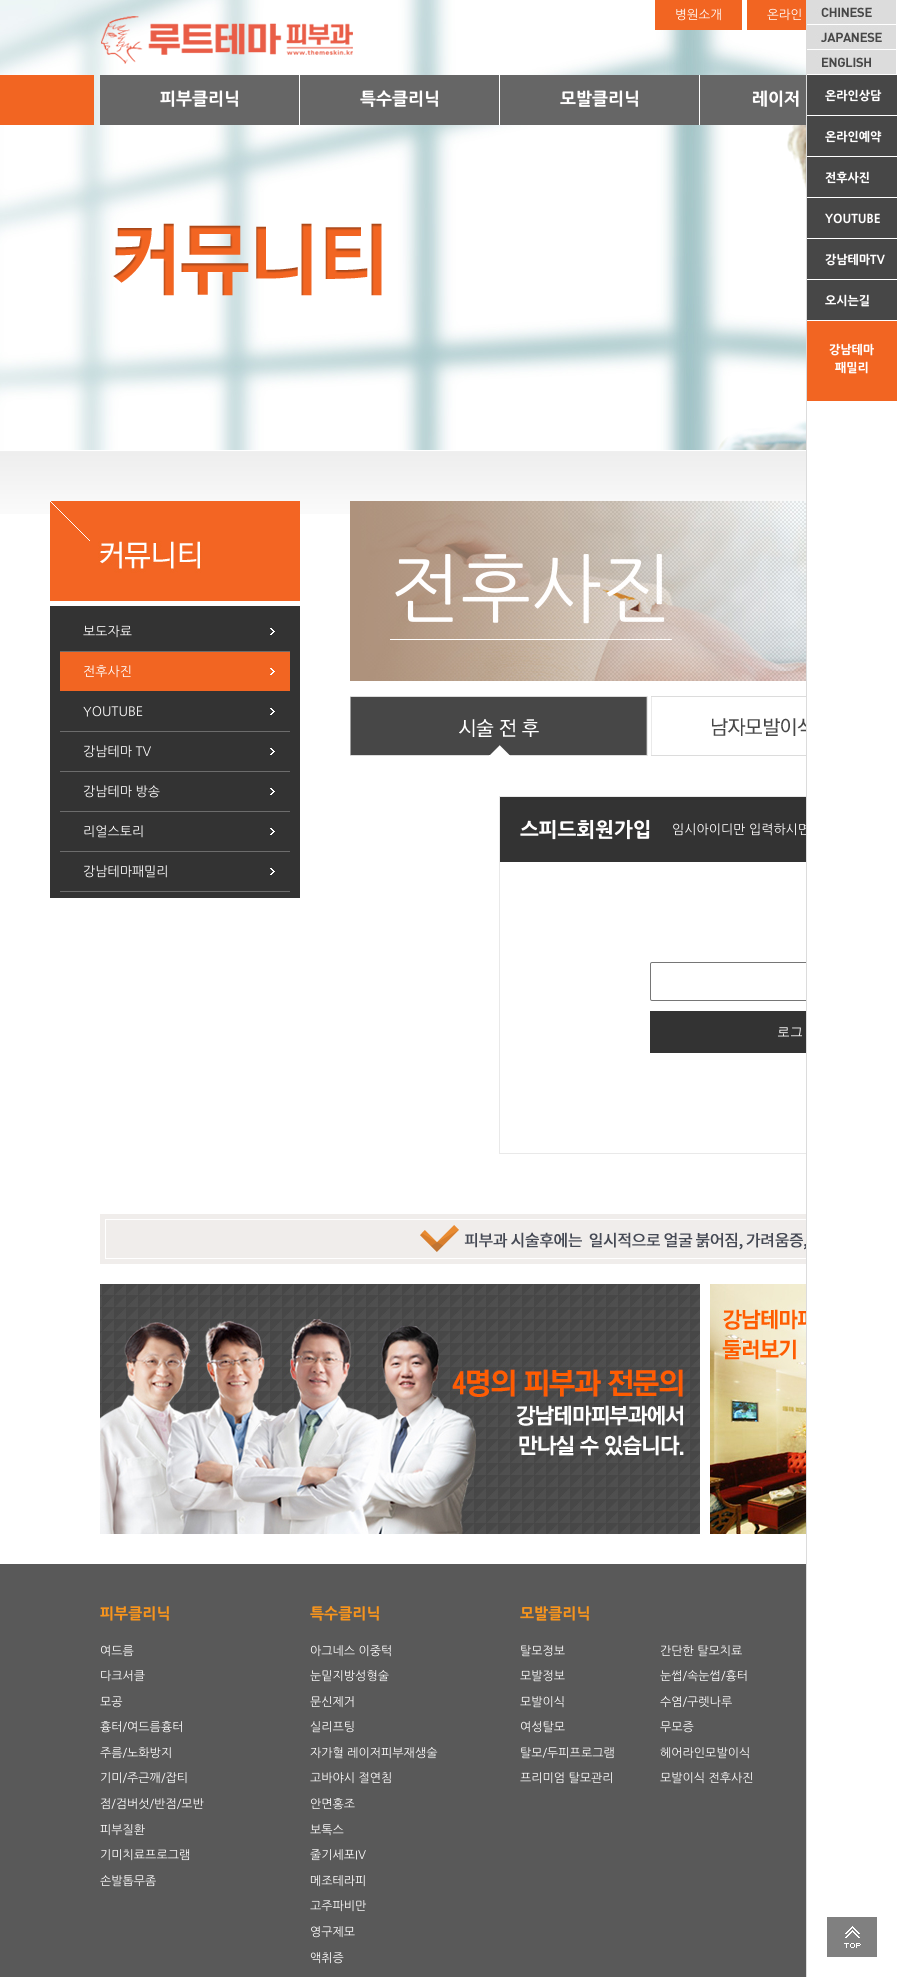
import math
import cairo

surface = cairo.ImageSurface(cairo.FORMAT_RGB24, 897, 1977)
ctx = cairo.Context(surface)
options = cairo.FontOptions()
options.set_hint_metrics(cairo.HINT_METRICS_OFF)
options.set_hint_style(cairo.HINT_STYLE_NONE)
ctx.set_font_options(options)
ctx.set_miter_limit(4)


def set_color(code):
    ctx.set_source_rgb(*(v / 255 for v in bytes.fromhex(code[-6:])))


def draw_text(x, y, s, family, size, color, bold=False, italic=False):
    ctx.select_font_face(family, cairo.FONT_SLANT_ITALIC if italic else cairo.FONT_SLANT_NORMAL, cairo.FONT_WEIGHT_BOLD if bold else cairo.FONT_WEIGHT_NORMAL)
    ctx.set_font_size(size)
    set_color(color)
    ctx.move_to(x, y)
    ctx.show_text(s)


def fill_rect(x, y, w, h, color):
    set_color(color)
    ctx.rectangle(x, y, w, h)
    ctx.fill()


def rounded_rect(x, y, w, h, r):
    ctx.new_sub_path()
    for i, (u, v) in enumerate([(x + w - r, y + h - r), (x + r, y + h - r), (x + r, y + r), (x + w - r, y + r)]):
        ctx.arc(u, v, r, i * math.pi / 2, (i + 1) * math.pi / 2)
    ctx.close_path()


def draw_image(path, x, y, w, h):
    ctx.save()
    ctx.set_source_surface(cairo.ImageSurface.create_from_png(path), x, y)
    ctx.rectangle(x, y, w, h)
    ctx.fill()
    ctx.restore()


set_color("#ffffff")
ctx.paint()
draw_image("assets/img1.png", 0, 0, 806, 450)
draw_image("assets/img2.png", 113, 125, 693, 325)
fill_rect(655, 0, 87, 30, "#f26522")
draw_text(675, 19, "병원소개", "NanumGothic", 12.5, "#fffefe")
fill_rect(747, 0, 59, 30, "#f26522")
draw_text(767, 19, "온라인", "NanumGothic", 12.5, "#fffefe")
draw_image("assets/img3.png", 101, 16, 252, 48)
fill_rect(0, 75, 94, 50, "#f26522")
fill_rect(100, 75, 199, 50, "#666666")
draw_text(160, 105, "피부클리닉", "NanumGothic ExtraBold", 17, "#fffefe")
fill_rect(300, 75, 199, 50, "#666666")
fill_rect(499, 75, 1, 50, "#ffffff")
draw_text(360, 105, "특수클리닉", "NanumGothic ExtraBold", 17, "#fffefe")
fill_rect(500, 75, 199, 50, "#666666")
fill_rect(699, 75, 1, 50, "#ffffff")
draw_text(560, 105, "모발클리닉", "NanumGothic ExtraBold", 17, "#fffefe")
fill_rect(700, 75, 106, 50, "#666666")
draw_text(752, 105, "레이저", "NanumGothic ExtraBold", 17, "#fffefe")
ctx.rectangle(499.5, 796.5, 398, 357)
set_color("#e9e9e9")
ctx.set_line_width(1)
ctx.stroke()
fill_rect(500, 797, 306, 65, "#333333")
draw_text(672, 834, "임시아이디만 입력하시면", "NanumGothic", 13, "#fffefe")
rounded_rect(650.5, 962.5, 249, 38, 1.5)
set_color("#767676")
ctx.stroke()
fill_rect(807, 796, 90, 358, "#ffffff")
fill_rect(806, 0, 1, 1977, "#dcdcdc")
draw_image("assets/img4.png", 807, 0, 89, 24)
draw_image("assets/img5.png", 807, 25, 89, 24)
draw_image("assets/img6.png", 807, 50, 89, 24)
fill_rect(807, 75, 90, 40, "#474747")
draw_text(825, 100, "온라인상담", "NanumGothic ExtraBold", 12, "#fffefe")
fill_rect(807, 116, 90, 40, "#474747")
draw_text(825, 141, "온라인예약", "NanumGothic ExtraBold", 12, "#fffefe")
fill_rect(807, 157, 90, 40, "#474747")
draw_text(825, 182, "전후사진", "NanumGothic ExtraBold", 12, "#fffefe")
fill_rect(807, 198, 90, 40, "#474747")
draw_text(825, 223, "YOUTUBE", "NanumGothic ExtraBold", 12, "#fffefe")
fill_rect(807, 239, 90, 40, "#474747")
draw_text(825, 264, "강남테마TV", "NanumGothic ExtraBold", 12, "#fffefe")
fill_rect(807, 280, 90, 40, "#474747")
draw_text(825, 305, "오시는길", "NanumGothic ExtraBold", 12, "#fffefe")
fill_rect(807, 321, 90, 80, "#f26522")
draw_text(829, 354, "강남테마", "NanumGothic ExtraBold", 12, "#fffefe")
draw_text(835, 372, "패밀리", "NanumGothic ExtraBold", 12, "#fffefe")
draw_image("assets/img7.png", 827, 1917, 50, 40)
draw_image("assets/img8.png", 0, 451, 806, 63)
draw_image("assets/img9.png", 50, 501, 250, 100)
fill_rect(50, 606, 250, 292, "#333333")
fill_rect(60, 651, 230, 1, "#6c6c6c")
draw_image("assets/img10.png", 270, 628, 5, 7)
draw_text(83, 636, "보도자료", "NanumGothic", 13, "#fffefe")
fill_rect(60, 652, 230, 39, "#f26522")
draw_image("assets/img11.png", 270, 668, 5, 7)
draw_text(83, 676, "전후사진", "NanumGothic", 13, "#fffefe")
fill_rect(60, 731, 230, 1, "#6c6c6c")
draw_image("assets/img10.png", 270, 708, 5, 7)
draw_text(83, 716, "YOUTUBE", "NanumGothic", 13, "#fffefe")
fill_rect(60, 771, 230, 1, "#6c6c6c")
draw_image("assets/img10.png", 270, 748, 5, 7)
draw_text(83, 756, "강남테마 TV", "NanumGothic", 13, "#fffefe")
fill_rect(60, 811, 230, 1, "#6c6c6c")
draw_image("assets/img10.png", 270, 788, 5, 7)
draw_text(83, 796, "강남테마 방송", "NanumGothic", 13, "#fffefe")
fill_rect(60, 851, 230, 1, "#6c6c6c")
draw_image("assets/img10.png", 270, 828, 5, 7)
draw_text(83, 836, "리얼스토리", "NanumGothic", 13, "#fffefe")
fill_rect(60, 891, 230, 1, "#6c6c6c")
draw_image("assets/img10.png", 270, 868, 5, 7)
draw_text(83, 876, "강남테마패밀리", "NanumGothic", 13, "#fffefe")
draw_image("assets/img12.png", 350, 501, 456, 180)
fill_rect(390, 639, 282, 1, "#ffffff")
draw_text(390, 616, "전후사진", "NanumGothic", 75, "#fffefe")
draw_image("assets/img13.png", 350, 696, 298, 60)
draw_image("assets/img14.png", 651, 696, 155, 60)
draw_text(520, 837, "스피드회원가입", "NanumGothic ExtraBold", 20, "#fffefe")
fill_rect(650, 1011, 156, 42, "#333333")
draw_text(777, 1036, "로그", "WenQuanYi Zen Hei Medium", 13, "#fffefe")
draw_image("assets/img15.png", 100, 1214, 706, 50)
draw_image("assets/img16.png", 100, 1284, 600, 250)
draw_image("assets/img17.png", 710, 1284, 96, 250)
fill_rect(0, 1564, 806, 413, "#595959")
draw_text(100, 1619, "피부클리닉", "NanumGothic ExtraBold", 15, "#f7941d")
draw_text(100, 1655, "여드름", "NanumGothic", 12, "#fffefe")
draw_text(100, 1680, "다크서클", "NanumGothic", 12, "#fffefe")
draw_text(100, 1706, "모공", "NanumGothic", 12, "#fffefe")
draw_text(100, 1731, "흉터/여드름흉터", "NanumGothic", 12, "#fffefe")
draw_text(100, 1757, "주름/노화방지", "NanumGothic", 12, "#fffefe")
draw_text(100, 1782, "기미/주근깨/잡티", "NanumGothic", 12, "#fffefe")
draw_text(100, 1808, "점/검버섯/반점/모반", "NanumGothic", 12, "#fffefe")
draw_text(100, 1834, "피부질환", "NanumGothic", 12, "#fffefe")
draw_text(100, 1859, "기미치료프로그램", "NanumGothic", 12, "#fffefe")
draw_text(100, 1885, "손발톱무좀", "NanumGothic", 12, "#fffefe")
draw_text(310, 1619, "특수클리닉", "NanumGothic ExtraBold", 15, "#f7941d")
draw_text(310, 1655, "아그네스 이중턱", "NanumGothic", 12, "#fffefe")
draw_text(310, 1680, "눈밑지방성형술", "NanumGothic", 12, "#fffefe")
draw_text(310, 1706, "문신제거", "NanumGothic", 12, "#fffefe")
draw_text(310, 1731, "실리프팅", "NanumGothic", 12, "#fffefe")
draw_text(310, 1757, "자가혈 레이저피부재생술", "NanumGothic", 12, "#fffefe")
draw_text(310, 1782, "고바야시 절연침", "NanumGothic", 12, "#fffefe")
draw_text(310, 1808, "안면홍조", "NanumGothic", 12, "#fffefe")
draw_text(310, 1834, "보톡스", "NanumGothic", 12, "#fffefe")
draw_text(310, 1859, "줄기세포IV", "NanumGothic", 12, "#fffefe")
draw_text(310, 1885, "메조테라피", "NanumGothic", 12, "#fffefe")
draw_text(310, 1910, "고주파비만", "NanumGothic", 12, "#fffefe")
draw_text(310, 1936, "영구제모", "NanumGothic", 12, "#fffefe")
draw_text(310, 1962, "액취증", "NanumGothic", 12, "#fffefe")
draw_text(520, 1619, "모발클리닉", "NanumGothic ExtraBold", 15, "#f7941d")
draw_text(520, 1655, "탈모정보", "NanumGothic", 12, "#fffefe")
draw_text(520, 1680, "모발정보", "NanumGothic", 12, "#fffefe")
draw_text(520, 1706, "모발이식", "NanumGothic", 12, "#fffefe")
draw_text(520, 1731, "여성탈모", "NanumGothic", 12, "#fffefe")
draw_text(520, 1757, "탈모/두피프로그램", "NanumGothic", 12, "#fffefe")
draw_text(520, 1782, "프리미엄 탈모관리", "NanumGothic", 12, "#fffefe")
draw_text(660, 1655, "간단한 탈모치료", "NanumGothic", 12, "#fffefe")
draw_text(660, 1680, "눈썹/속눈썹/흉터", "NanumGothic", 12, "#fffefe")
draw_text(660, 1706, "수염/구렛나루", "NanumGothic", 12, "#fffefe")
draw_text(660, 1731, "무모증", "NanumGothic", 12, "#fffefe")
draw_text(660, 1757, "헤어라인모발이식", "NanumGothic", 12, "#fffefe")
draw_text(660, 1782, "모발이식 전후사진", "NanumGothic", 12, "#fffefe")
surface.write_to_png("output.png")
